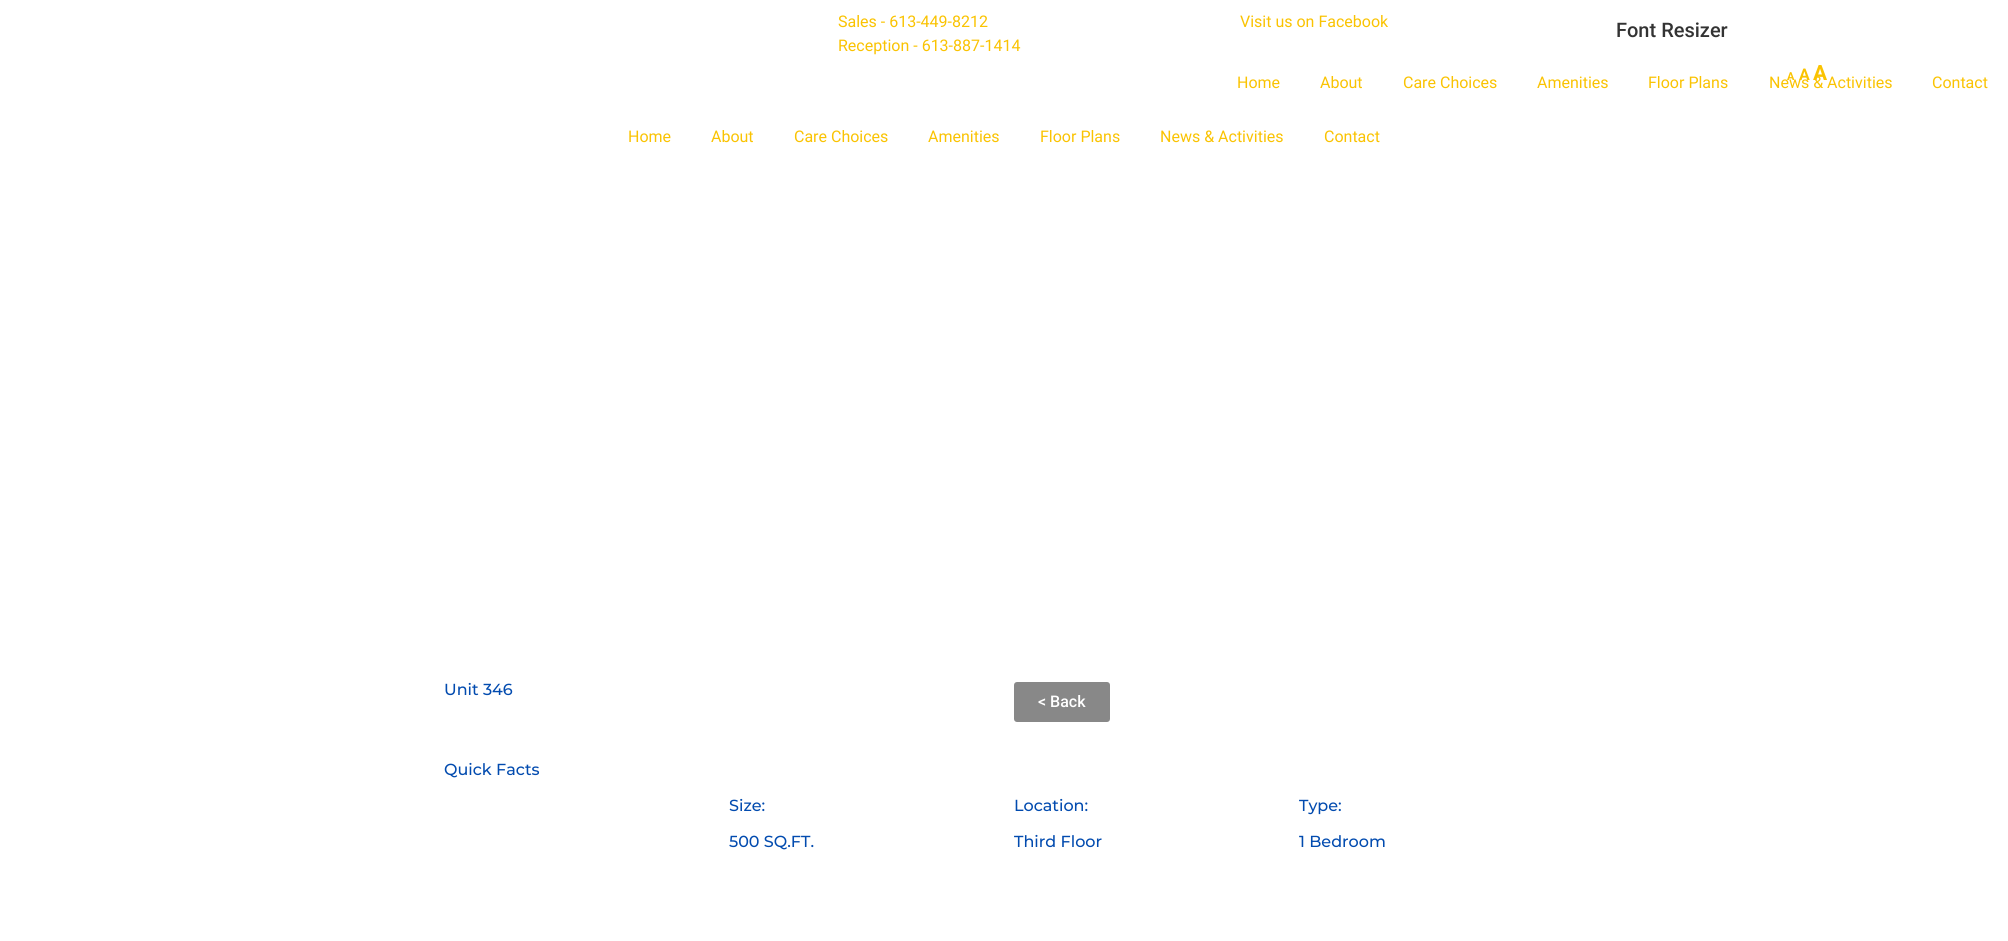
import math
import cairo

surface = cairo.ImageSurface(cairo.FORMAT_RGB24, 2008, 941)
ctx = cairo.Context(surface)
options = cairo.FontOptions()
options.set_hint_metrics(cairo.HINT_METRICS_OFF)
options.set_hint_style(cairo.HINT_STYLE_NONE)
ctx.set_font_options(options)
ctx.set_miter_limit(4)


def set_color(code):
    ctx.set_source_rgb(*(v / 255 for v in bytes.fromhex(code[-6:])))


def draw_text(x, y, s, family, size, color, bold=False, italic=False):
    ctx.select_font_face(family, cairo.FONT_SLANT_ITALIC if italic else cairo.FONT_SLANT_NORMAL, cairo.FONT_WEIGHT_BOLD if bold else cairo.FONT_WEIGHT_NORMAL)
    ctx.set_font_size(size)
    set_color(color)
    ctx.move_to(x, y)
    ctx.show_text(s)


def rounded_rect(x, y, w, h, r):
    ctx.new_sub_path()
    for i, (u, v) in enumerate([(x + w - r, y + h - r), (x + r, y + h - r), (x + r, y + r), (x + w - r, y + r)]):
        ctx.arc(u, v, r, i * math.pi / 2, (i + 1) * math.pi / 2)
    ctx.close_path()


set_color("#ffffff")
ctx.paint()
draw_text(838, 27, "Sales - 613-449-8212", "Roboto", 16, "#fac302")
draw_text(838, 51, "Reception - 613-887-1414", "Roboto", 16, "#fac302")
draw_text(1240, 27, "Visit us on Facebook", "Roboto", 16, "#fac302")
draw_text(1616, 37, "Font Resizer", "Roboto Medium", 20, "#333333")
draw_text(1787, 80, "A", "Roboto", 11, "#fac302", bold=True)
draw_text(1799, 80, "A", "Roboto", 16, "#fac302", bold=True)
draw_text(1813, 80, "A", "Roboto", 21, "#fac302", bold=True)
draw_text(628, 142, "Home", "Roboto", 16, "#fac302")
draw_text(711, 142, "About", "Roboto", 16, "#fac302")
draw_text(794, 142, "Care Choices", "Roboto", 16, "#fac302")
draw_text(928, 142, "Amenities", "Roboto", 16, "#fac302")
draw_text(1040, 142, "Floor Plans", "Roboto", 16, "#fac302")
draw_text(1160, 142, "News & Activities", "Roboto", 16, "#fac302")
draw_text(1324, 142, "Contact", "Roboto", 16, "#fac302")
draw_text(1237, 88, "Home", "Roboto", 16, "#fac302")
draw_text(1320, 88, "About", "Roboto", 16, "#fac302")
draw_text(1403, 88, "Care Choices", "Roboto", 16, "#fac302")
draw_text(1537, 88, "Amenities", "Roboto", 16, "#fac302")
draw_text(1648, 88, "Floor Plans", "Roboto", 16, "#fac302")
draw_text(1769, 88, "News & Activities", "Roboto", 16, "#fac302")
draw_text(1932, 88, "Contact", "Roboto", 16, "#fac302")
draw_text(444, 695, "Unit 346", "Montserrat Medium", 16, "#024baf")
set_color("#888888")
rounded_rect(1014, 682, 96, 40, 3)
ctx.fill()
draw_text(1038, 707, "< Back", "Roboto Medium", 16, "#ffffff")
draw_text(444, 775, "Quick Facts", "Montserrat Medium", 16, "#024baf")
draw_text(729, 811, "Size:", "Montserrat Medium", 16, "#024baf")
draw_text(729, 847, "500 SQ.FT.", "Montserrat Medium", 16, "#024baf")
draw_text(1014, 811, "Location:", "Montserrat Medium", 16, "#024baf")
draw_text(1014, 847, "Third Floor", "Montserrat Medium", 16, "#024baf")
draw_text(1299, 811, "Type:", "Montserrat Medium", 16, "#024baf")
draw_text(1299, 847, "1 Bedroom", "Montserrat Medium", 16, "#024baf")
surface.write_to_png("output.png")
